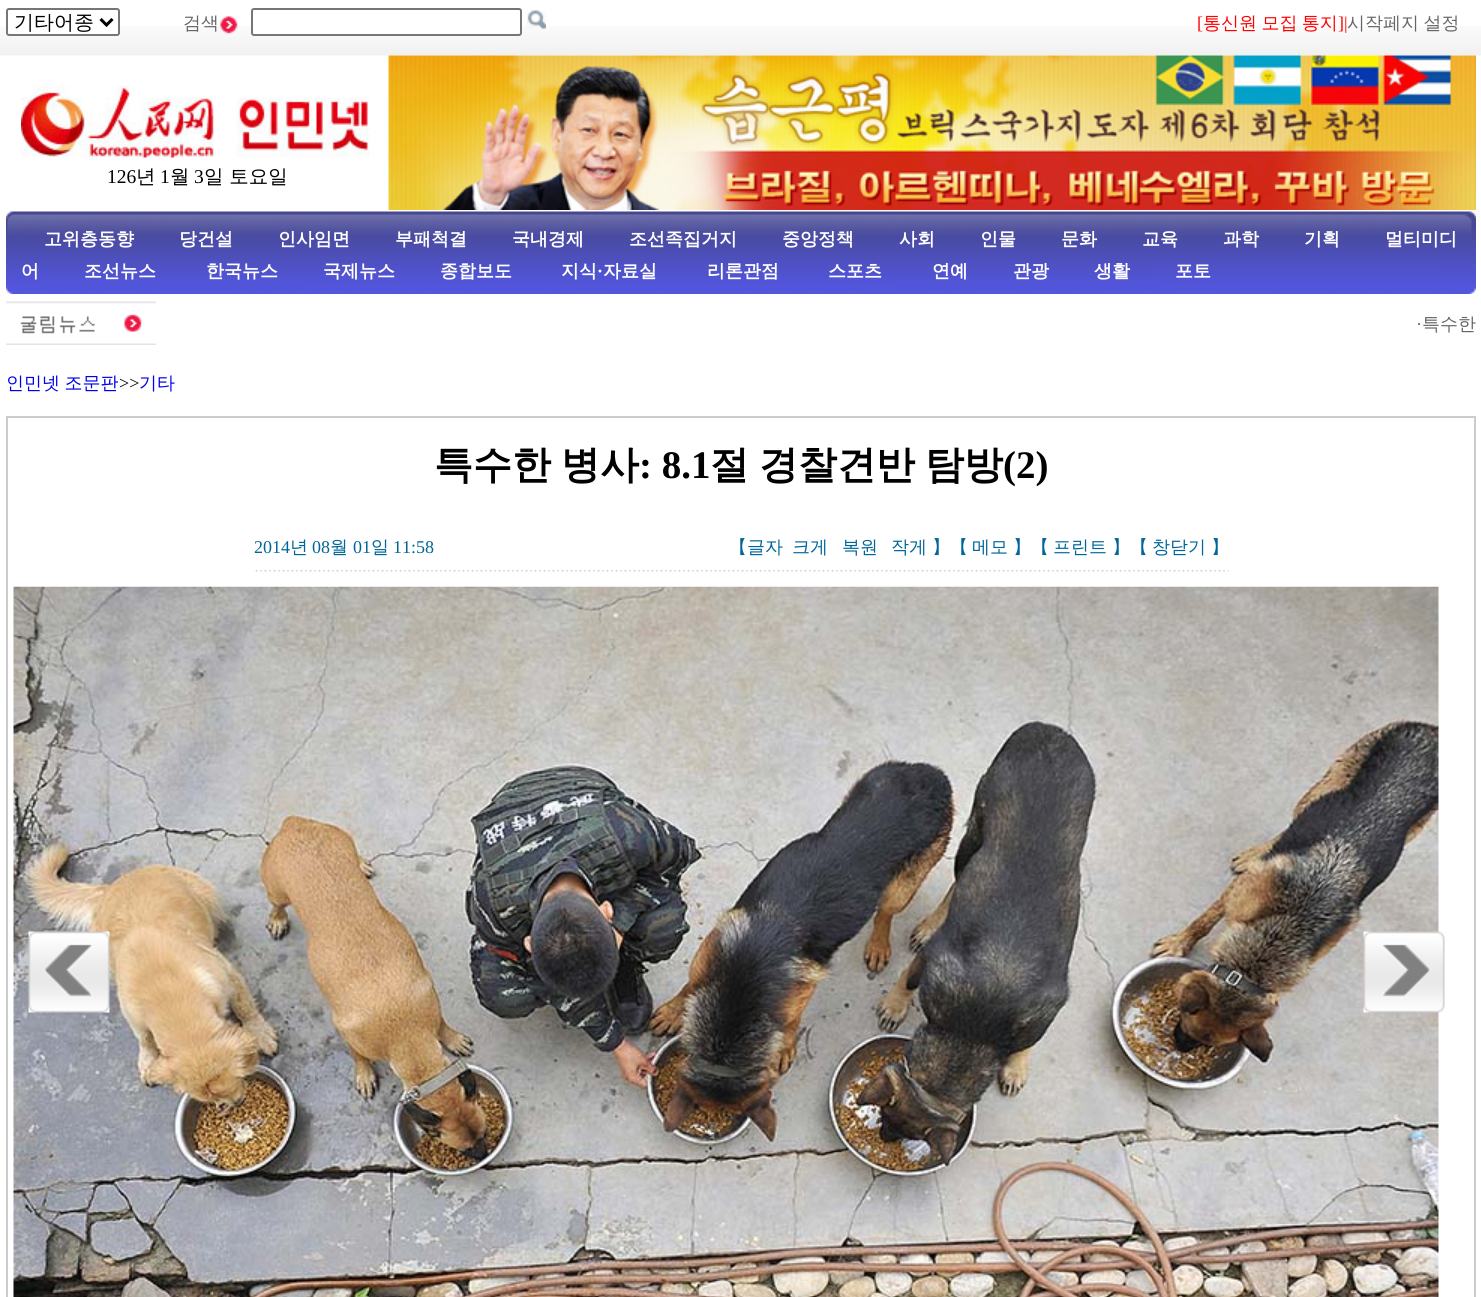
import math
import cairo

surface = cairo.ImageSurface(cairo.FORMAT_RGB24, 1481, 1297)
ctx = cairo.Context(surface)
options = cairo.FontOptions()
options.set_hint_metrics(cairo.HINT_METRICS_OFF)
options.set_hint_style(cairo.HINT_STYLE_NONE)
ctx.set_font_options(options)
ctx.set_miter_limit(4)


def set_color(code):
    ctx.set_source_rgb(*(v / 255 for v in bytes.fromhex(code[-6:])))


def draw_text(x, y, s, family, size, color, bold=False, italic=False):
    ctx.select_font_face(family, cairo.FONT_SLANT_ITALIC if italic else cairo.FONT_SLANT_NORMAL, cairo.FONT_WEIGHT_BOLD if bold else cairo.FONT_WEIGHT_NORMAL)
    ctx.set_font_size(size)
    set_color(color)
    ctx.move_to(x, y)
    ctx.show_text(s)


def draw_spaced(x, y, s, letter, word):
    ctx.move_to(x, y)
    for ch in s:
        ctx.show_text(ch)
        ctx.rel_move_to(letter + word * (ch == ' '), 0)


def rounded_rect(x, y, w, h, r):
    ctx.new_sub_path()
    for i, (u, v) in enumerate([(x + w - r, y + h - r), (x + r, y + h - r), (x + r, y + r), (x + w - r, y + r)]):
        ctx.arc(u, v, r, i * math.pi / 2, (i + 1) * math.pi / 2)
    ctx.close_path()


def draw_image(path, x, y, w, h):
    ctx.save()
    ctx.set_source_surface(cairo.ImageSurface.create_from_png(path), x, y)
    ctx.rectangle(x, y, w, h)
    ctx.fill()
    ctx.restore()


set_color("#ffffff")
ctx.paint()
draw_image("assets/img1.png", 0, 26, 1481, 30)
set_color("#ffffff")
rounded_rect(7, 9, 112, 26, 2)
ctx.fill_preserve()
set_color("#767676")
ctx.stroke()
ctx.new_path()
ctx.move_to(100.5, 19)
ctx.line_to(106.5, 25)
ctx.line_to(112.5, 19)
set_color("#000000")
ctx.set_line_width(3)
ctx.stroke()
draw_text(14, 29, "기타어종", "WenQuanYi Zen Hei Medium", 20, "#000000")
draw_text(183, 29, "검색", "WenQuanYi Zen Hei Medium", 18, "#666666")
draw_image("assets/img2.png", 219, 16, 19, 18)
set_color("#ffffff")
rounded_rect(252, 9, 269, 26, 2)
ctx.fill_preserve()
set_color("#767676")
ctx.set_line_width(2)
ctx.stroke()
draw_image("assets/img3.png", 526, 10, 20, 19)
draw_text(1197, 29, "[", "Liberation Serif", 18, "#ff0000")
ctx.select_font_face("WenQuanYi Zen Hei Medium")
draw_spaced(1203, 29, "통신원 모집 통지", 0, -1)
draw_text(1338, 29, "]|", "Liberation Serif", 18, "#ff0000")
ctx.select_font_face("WenQuanYi Zen Hei Medium")
set_color("#666666")
draw_spaced(1347, 29, "시작페지 설정", 0, -1)
draw_image("assets/img4.png", 21, 85, 349, 73)
draw_text(107, 183, "126", "Liberation Serif", 19.5, "#000000")
draw_text(136, 183, "년", "WenQuanYi Zen Hei Medium", 19.5, "#000000")
draw_text(160, 183, "1", "Liberation Serif", 19.5, "#000000")
draw_text(170, 183, "월", "WenQuanYi Zen Hei Medium", 19.5, "#000000")
draw_text(194, 183, "3", "Liberation Serif", 19.5, "#000000")
draw_text(204, 183, "일 토요일", "WenQuanYi Zen Hei Medium", 19.5, "#000000")
draw_image("assets/img5.png", 388, 55, 1088, 155)
draw_image("assets/img6.png", 6, 211, 1470, 83)
draw_text(44, 245, "고위층동향", "WenQuanYi Zen Hei", 18, "#ffffff", bold=True)
draw_text(179, 245, "당건설", "WenQuanYi Zen Hei", 18, "#ffffff", bold=True)
draw_text(278, 245, "인사임면", "WenQuanYi Zen Hei", 18, "#ffffff", bold=True)
draw_text(395, 245, "부패척결", "WenQuanYi Zen Hei", 18, "#ffffff", bold=True)
draw_text(512, 245, "국내경제", "WenQuanYi Zen Hei", 18, "#ffffff", bold=True)
draw_text(629, 245, "조선족집거지", "WenQuanYi Zen Hei", 18, "#ffffff", bold=True)
draw_text(782, 245, "중앙정책", "WenQuanYi Zen Hei", 18, "#ffffff", bold=True)
draw_text(899, 245, "사회", "WenQuanYi Zen Hei", 18, "#ffffff", bold=True)
draw_text(980, 245, "인물", "WenQuanYi Zen Hei", 18, "#ffffff", bold=True)
draw_text(1061, 245, "문화", "WenQuanYi Zen Hei", 18, "#ffffff", bold=True)
draw_text(1142, 245, "교육", "WenQuanYi Zen Hei", 18, "#ffffff", bold=True)
draw_text(1223, 245, "과학", "WenQuanYi Zen Hei", 18, "#ffffff", bold=True)
draw_text(1304, 245, "기획", "WenQuanYi Zen Hei", 18, "#ffffff", bold=True)
draw_text(1385, 245, "멀티미디", "WenQuanYi Zen Hei", 18, "#ffffff", bold=True)
draw_text(21, 277, "어", "WenQuanYi Zen Hei", 18, "#ffffff", bold=True)
draw_text(84, 277, "조선뉴스", "WenQuanYi Zen Hei", 18, "#ffffff", bold=True)
draw_text(206, 277, "한국뉴스", "WenQuanYi Zen Hei", 18, "#ffffff", bold=True)
draw_text(323, 277, "국제뉴스", "WenQuanYi Zen Hei", 18, "#ffffff", bold=True)
draw_text(440, 277, "종합보도", "WenQuanYi Zen Hei", 18, "#ffffff", bold=True)
draw_text(561, 277, "지식", "WenQuanYi Zen Hei", 18, "#ffffff", bold=True)
draw_text(597, 277, "·", "Liberation Serif", 18, "#ffffff", bold=True)
draw_text(603, 277, "자료실", "WenQuanYi Zen Hei", 18, "#ffffff", bold=True)
draw_text(707, 277, "리론관점", "WenQuanYi Zen Hei", 18, "#ffffff", bold=True)
draw_text(828, 277, "스포츠", "WenQuanYi Zen Hei", 18, "#ffffff", bold=True)
draw_text(932, 277, "연예", "WenQuanYi Zen Hei", 18, "#ffffff", bold=True)
draw_text(1013, 277, "관광", "WenQuanYi Zen Hei", 18, "#ffffff", bold=True)
draw_text(1094, 277, "생활", "WenQuanYi Zen Hei", 18, "#ffffff", bold=True)
draw_text(1175, 277, "포토", "WenQuanYi Zen Hei", 18, "#ffffff", bold=True)
draw_image("assets/img7.png", 6, 301, 151, 44)
draw_text(1416, 330, "·", "Liberation Serif", 18, "#666666")
draw_text(1422, 330, "특수한", "WenQuanYi Zen Hei Medium", 18, "#666666")
set_color("#0000ee")
draw_spaced(6, 389, "인민넷 조문판", 0, -1)
draw_text(119, 389, ">>", "Liberation Serif", 18, "#000000")
draw_text(139, 389, "기타", "WenQuanYi Zen Hei Medium", 18, "#0000ee")
ctx.rectangle(7, 417, 1468, 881)
set_color("#cccccc")
ctx.stroke()
draw_text(434, 478, "특수한", "WenQuanYi Zen Hei", 39, "#000000", bold=True)
draw_text(561, 478, "병사", "WenQuanYi Zen Hei", 39, "#000000", bold=True)
draw_text(639, 478, ": 8.1", "Liberation Serif", 39, "#000000", bold=True)
draw_text(710, 478, "절", "WenQuanYi Zen Hei", 39, "#000000", bold=True)
draw_text(759, 478, "경찰견반", "WenQuanYi Zen Hei", 39, "#000000", bold=True)
draw_text(925, 478, "탐방", "WenQuanYi Zen Hei", 39, "#000000", bold=True)
draw_text(1003, 478, "(2)", "Liberation Serif", 39, "#000000", bold=True)
draw_image("assets/img8.png", 255, 570, 974, 2)
draw_text(254, 553, "2014", "Liberation Serif", 18, "#006699")
draw_text(290, 553, "년", "WenQuanYi Zen Hei Medium", 18, "#006699")
draw_text(312, 553, "08", "Liberation Serif", 18, "#006699")
draw_text(330, 553, "월", "WenQuanYi Zen Hei Medium", 18, "#006699")
draw_text(353, 553, "01", "Liberation Serif", 18, "#006699")
draw_text(371, 553, "일", "WenQuanYi Zen Hei Medium", 18, "#006699")
draw_text(393, 553, "11:58", "Liberation Serif", 18, "#006699")
draw_text(729, 553, "【글자", "WenQuanYi Zen Hei Medium", 18, "#006699")
draw_text(792, 553, "크게", "WenQuanYi Zen Hei Medium", 18, "#006699")
draw_text(842, 553, "복원", "WenQuanYi Zen Hei Medium", 18, "#006699")
draw_text(891, 553, "작게", "WenQuanYi Zen Hei Medium", 18, "#006699")
draw_text(932, 553, "】【", "WenQuanYi Zen Hei Medium", 18, "#006699")
draw_text(972, 553, "메모", "WenQuanYi Zen Hei Medium", 18, "#006699")
draw_text(1013, 553, "】【", "WenQuanYi Zen Hei Medium", 18, "#006699")
draw_text(1053, 553, "프린트", "WenQuanYi Zen Hei Medium", 18, "#006699")
draw_text(1112, 553, "】【", "WenQuanYi Zen Hei Medium", 18, "#006699")
draw_text(1152, 553, "창닫기", "WenQuanYi Zen Hei Medium", 18, "#006699")
draw_text(1211, 553, "】", "WenQuanYi Zen Hei Medium", 18, "#006699")
draw_image("assets/img9.png", 13, 586, 1426, 711)
draw_image("assets/img10.png", 28, 931, 82, 82)
draw_image("assets/img11.png", 1363, 931, 82, 82)
surface.write_to_png("output.png")
